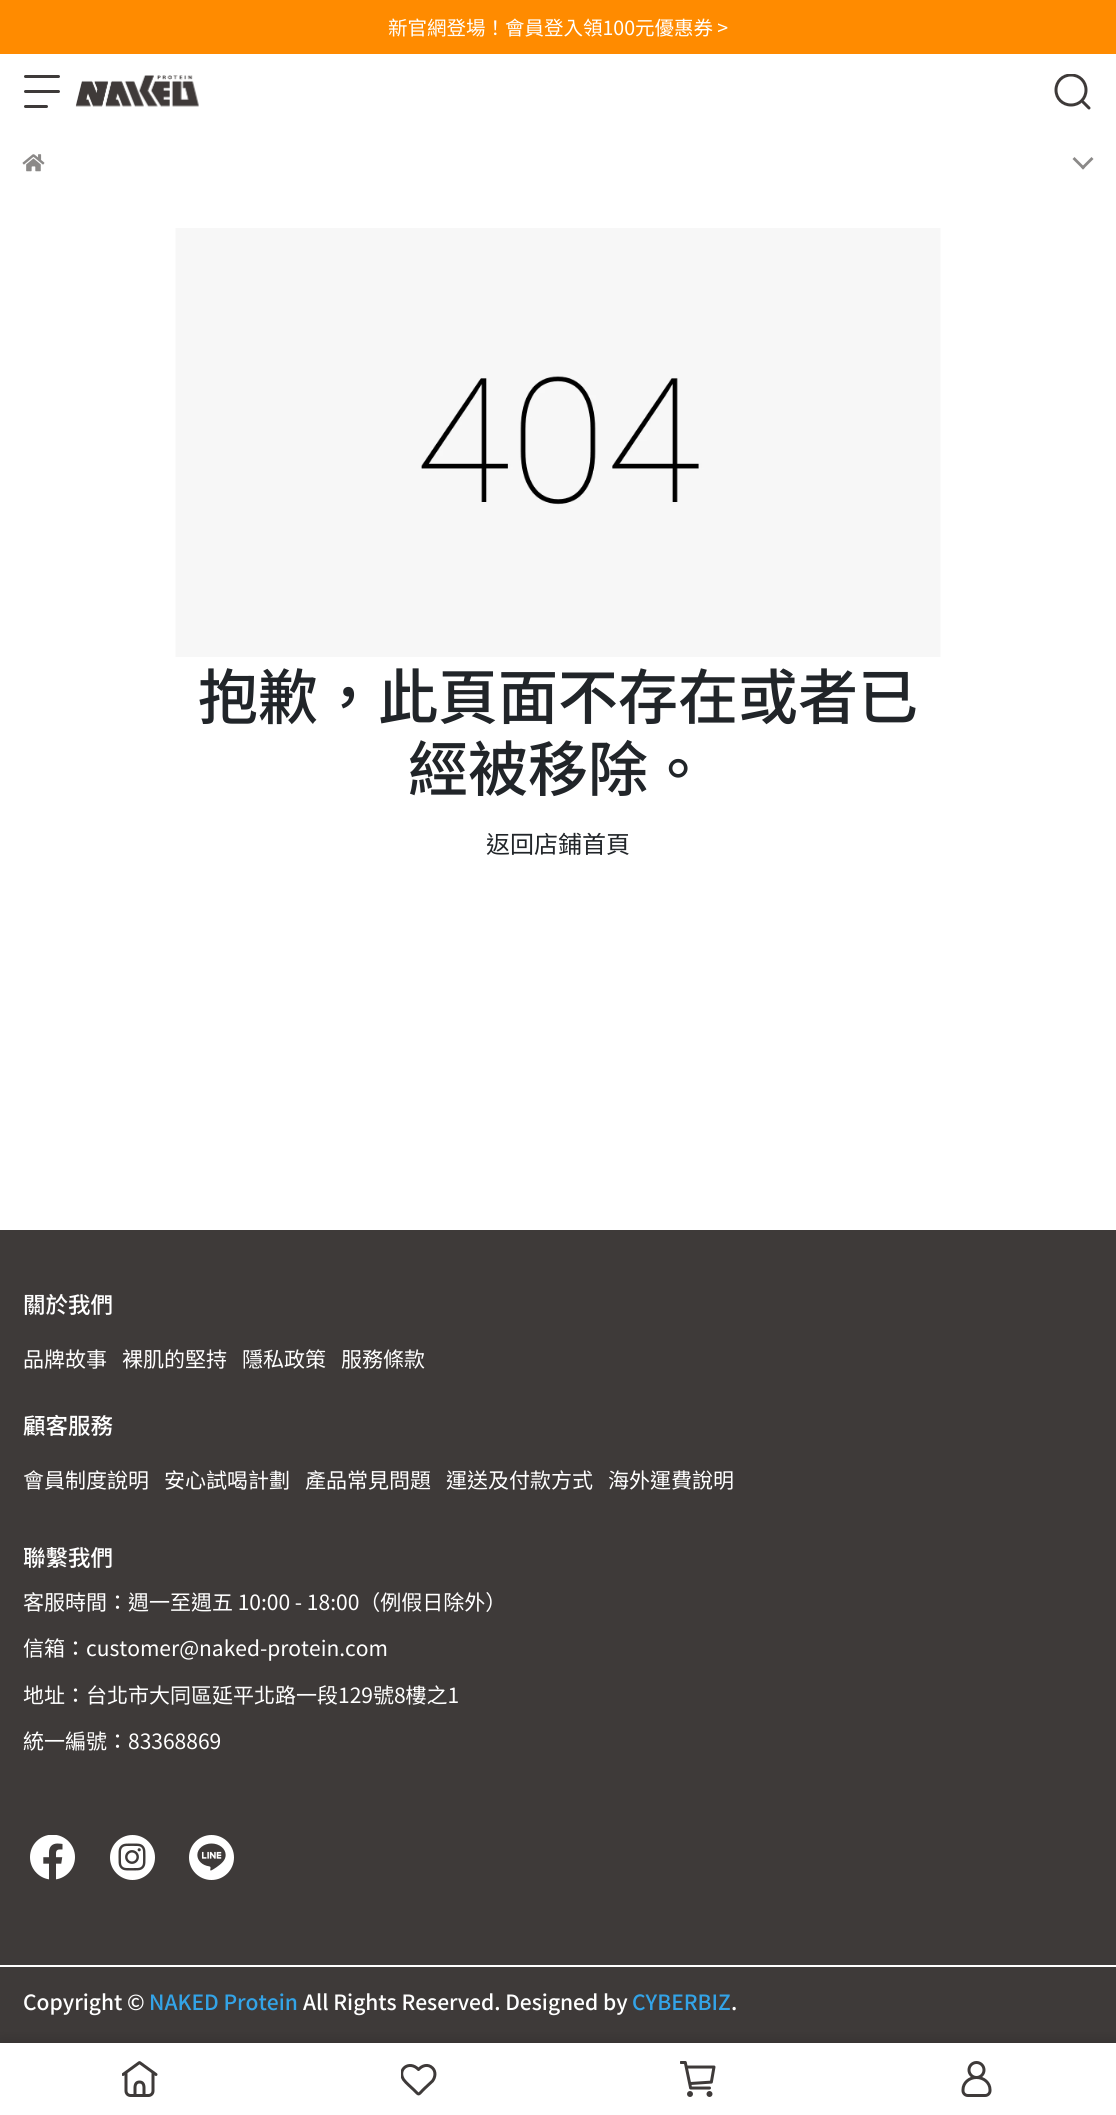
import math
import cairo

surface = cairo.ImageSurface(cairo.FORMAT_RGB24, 1116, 2115)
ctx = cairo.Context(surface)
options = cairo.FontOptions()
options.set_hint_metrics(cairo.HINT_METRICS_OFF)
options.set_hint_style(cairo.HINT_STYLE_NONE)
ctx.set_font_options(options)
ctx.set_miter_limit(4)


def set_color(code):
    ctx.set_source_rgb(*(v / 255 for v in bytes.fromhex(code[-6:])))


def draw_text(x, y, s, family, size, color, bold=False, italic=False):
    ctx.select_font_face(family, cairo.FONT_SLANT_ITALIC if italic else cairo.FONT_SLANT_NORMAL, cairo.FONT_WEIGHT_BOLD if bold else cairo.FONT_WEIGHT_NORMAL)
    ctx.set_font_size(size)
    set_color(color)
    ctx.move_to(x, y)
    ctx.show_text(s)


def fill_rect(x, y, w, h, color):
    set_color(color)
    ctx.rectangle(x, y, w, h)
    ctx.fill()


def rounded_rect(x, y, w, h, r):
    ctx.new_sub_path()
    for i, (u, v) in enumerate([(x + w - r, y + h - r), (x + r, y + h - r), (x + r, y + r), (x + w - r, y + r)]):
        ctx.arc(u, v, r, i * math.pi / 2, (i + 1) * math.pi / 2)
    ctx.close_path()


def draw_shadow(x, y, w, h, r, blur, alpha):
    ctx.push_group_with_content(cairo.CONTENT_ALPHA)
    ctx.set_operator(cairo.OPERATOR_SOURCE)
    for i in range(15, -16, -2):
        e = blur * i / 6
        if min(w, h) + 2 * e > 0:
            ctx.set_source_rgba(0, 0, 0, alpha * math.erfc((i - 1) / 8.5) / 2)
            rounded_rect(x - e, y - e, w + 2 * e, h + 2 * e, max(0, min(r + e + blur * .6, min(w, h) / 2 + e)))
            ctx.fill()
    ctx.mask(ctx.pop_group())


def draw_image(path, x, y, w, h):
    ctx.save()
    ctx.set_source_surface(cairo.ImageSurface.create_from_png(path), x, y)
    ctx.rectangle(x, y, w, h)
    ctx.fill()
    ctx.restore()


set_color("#ffffff")
ctx.paint()
fill_rect(0, 0, 1116, 54, "#ff8b00")
draw_text(388, 35, "新官網登場！會員登入領100元優惠券 >", "Noto Sans TC", 19.5, "#ffffff")
draw_image("assets/img1.png", 24, 75, 36, 33)
draw_image("assets/img2.png", 75, 75, 124, 32)
ctx.save()
ctx.rectangle(1053, 74, 39, 36)
ctx.clip()
ctx.new_path()
ctx.move_to(1086, 90)
ctx.curve_to(1086, 98.5, 1079.5, 105, 1071, 105)
ctx.curve_to(1062.5, 105, 1056, 98.5, 1056, 90)
ctx.curve_to(1056, 81.5, 1062.5, 75, 1071, 75)
ctx.curve_to(1079.5, 75, 1086, 81.5, 1086, 90)
ctx.close_path()
set_color("#3e3a39")
ctx.set_line_width(3)
ctx.set_line_cap(cairo.LINE_CAP_ROUND)
ctx.set_line_join(cairo.LINE_JOIN_ROUND)
ctx.stroke()
ctx.restore()
ctx.new_path()
ctx.move_to(1083, 102)
ctx.line_to(1089, 108)
set_color("#3e3a39")
ctx.set_line_width(3)
ctx.set_line_cap(cairo.LINE_CAP_ROUND)
ctx.set_line_join(cairo.LINE_JOIN_ROUND)
ctx.stroke()
fill_rect(0, 1230, 1116, 813, "#3e3a39")
set_color("#000000")
draw_shadow(0, 2043, 1116, 72, 0, 7.5, 0.2)
fill_rect(0, 2043, 1116, 72, "#ffffff")
draw_image("assets/img3.png", 122, 2061, 36, 36)
ctx.save()
ctx.rectangle(401, 2061, 36, 36)
ctx.clip()
ctx.new_path()
ctx.move_to(432.5, 2068)
ctx.curve_to(428, 2063.5, 422, 2065.5, 418.5, 2069.5)
ctx.curve_to(409.5, 2060, 397, 2069, 403.5, 2079.5)
ctx.curve_to(406.5, 2083.5, 410.5, 2086.5, 414, 2090)
ctx.curve_to(420, 2096, 417.5, 2095, 425, 2088)
ctx.line_to(432.5, 2081)
ctx.curve_to(435.5, 2077, 436, 2071.5, 432.5, 2068)
ctx.close_path()
set_color("#3e3a39")
ctx.stroke()
ctx.restore()
draw_image("assets/img4.png", 680, 2061, 36, 36)
draw_image("assets/img5.png", 961, 2061, 31, 36)
draw_image("assets/img6.png", 22, 154, 23, 18)
set_color("#8b8988")
ctx.new_path()
ctx.move_to(1081, 167.5)
ctx.line_to(1091.5, 157)
ctx.line_to(1093.5, 159)
ctx.line_to(1083, 169.5)
ctx.close_path()
ctx.fill()
ctx.new_path()
ctx.move_to(1072.5, 159)
ctx.line_to(1074.5, 157)
ctx.line_to(1085, 167.5)
ctx.line_to(1083, 169.5)
ctx.close_path()
ctx.fill()
draw_image("assets/img7.png", 175, 228, 766, 429)
draw_text(198, 719, "抱歉，此頁面不存在或者已", "Noto Sans TC Medium", 60, "#212529")
draw_text(408, 791, "經被移除。", "Noto Sans TC Medium", 60, "#212529")
draw_text(486, 853, "返回店鋪首頁", "Noto Sans TC", 24, "#212529")
draw_text(23, 1313, "關於我們", "Noto Sans TC Medium", 22.5, "#ffffff")
draw_text(23, 1367, "品牌故事", "Noto Sans TC", 21, "#ffffff")
draw_text(122, 1367, "裸肌的堅持", "Noto Sans TC", 21, "#ffffff")
draw_text(242, 1367, "隱私政策", "Noto Sans TC", 21, "#ffffff")
draw_text(341, 1367, "服務條款", "Noto Sans TC", 21, "#ffffff")
draw_text(23, 1434, "顧客服務", "Noto Sans TC Medium", 22.5, "#ffffff")
draw_text(23, 1488, "會員制度說明", "Noto Sans TC", 21, "#ffffff")
draw_text(164, 1488, "安心試喝計劃", "Noto Sans TC", 21, "#ffffff")
draw_text(305, 1488, "產品常見問題", "Noto Sans TC", 21, "#ffffff")
draw_text(446, 1488, "運送及付款方式", "Noto Sans TC", 21, "#ffffff")
draw_text(608, 1488, "海外運費說明", "Noto Sans TC", 21, "#ffffff")
draw_text(23, 1566, "聯繫我們", "Noto Sans TC Medium", 22.5, "#ffffff")
draw_text(23, 1610, "客服時間：週一至週五 10:00 - 18:00（例假日除外）", "Noto Sans TC", 21, "#ffffff")
draw_text(23, 1656, "信箱：customer@naked-protein.com", "Noto Sans TC", 21, "#ffffff")
draw_text(23, 1703, "地址：台北市大同區延平北路一段129號8樓之1", "Noto Sans TC", 21, "#ffffff")
draw_text(23, 1749, "統一編號：83368869", "Noto Sans TC", 21, "#ffffff")
draw_image("assets/img8.png", 30, 1835, 45, 45)
draw_image("assets/img9.png", 110, 1835, 45, 45)
draw_image("assets/img10.png", 189, 1835, 45, 45)
fill_rect(0, 1965, 1116, 2, "#ffffff")
draw_text(23, 2010, "Copyright ©", "Noto Sans TC Medium", 21, "#ffffff")
draw_text(149, 2010, "NAKED Protein", "Noto Sans TC Medium", 21, "#33a4e8")
draw_text(303, 2010, "All Rights Reserved. Designed by", "Noto Sans TC Medium", 21, "#ffffff")
draw_text(632, 2010, "CYBERBIZ", "Noto Sans TC Medium", 21, "#33a4e8")
draw_text(731, 2010, ".", "Noto Sans TC Medium", 21, "#ffffff")
surface.write_to_png("output.png")
